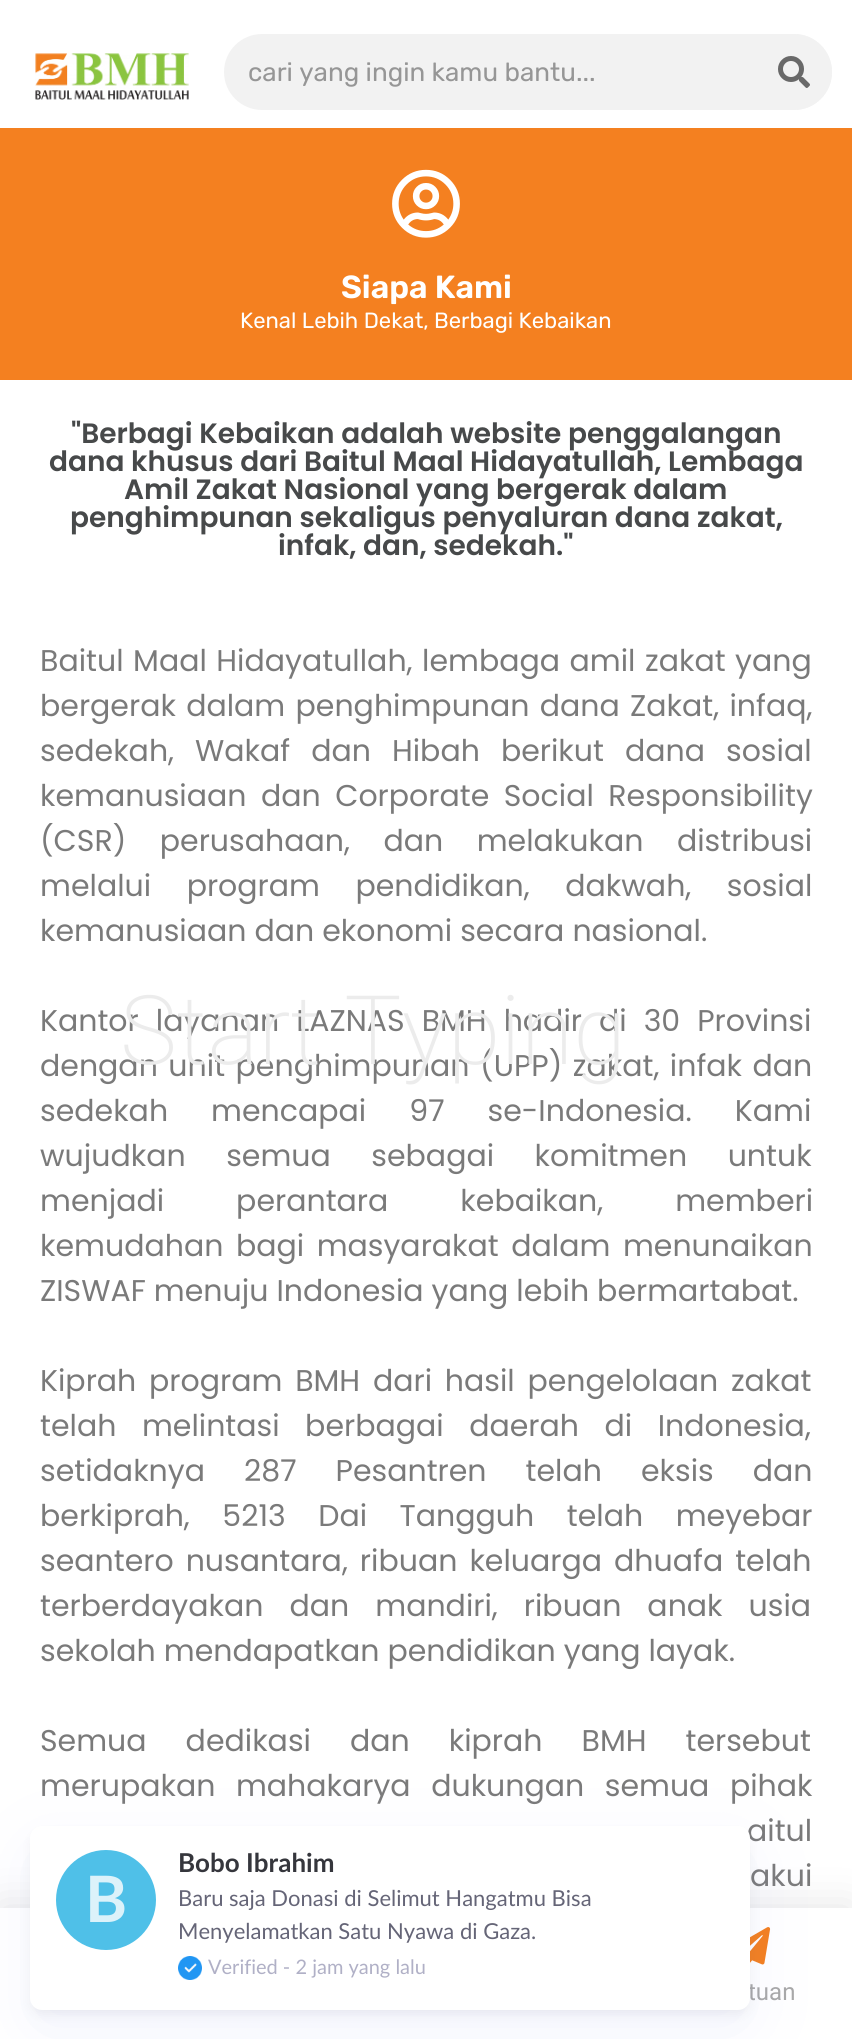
import math
import cairo

surface = cairo.ImageSurface(cairo.FORMAT_RGB24, 852, 2039)
ctx = cairo.Context(surface)
options = cairo.FontOptions()
options.set_hint_metrics(cairo.HINT_METRICS_OFF)
options.set_hint_style(cairo.HINT_STYLE_NONE)
ctx.set_font_options(options)
ctx.set_miter_limit(4)


def set_color(code):
    ctx.set_source_rgb(*(v / 255 for v in bytes.fromhex(code[-6:])))


def draw_text(x, y, s, family, size, color, bold=False, italic=False):
    ctx.select_font_face(family, cairo.FONT_SLANT_ITALIC if italic else cairo.FONT_SLANT_NORMAL, cairo.FONT_WEIGHT_BOLD if bold else cairo.FONT_WEIGHT_NORMAL)
    ctx.set_font_size(size)
    set_color(color)
    ctx.move_to(x, y)
    ctx.show_text(s)


def draw_spaced(x, y, s, letter, word):
    ctx.move_to(x, y)
    for ch in s:
        ctx.show_text(ch)
        ctx.rel_move_to(letter + word * (ch == ' '), 0)


def fill_rect(x, y, w, h, color):
    set_color(color)
    ctx.rectangle(x, y, w, h)
    ctx.fill()


def rounded_rect(x, y, w, h, r):
    ctx.new_sub_path()
    for i, (u, v) in enumerate([(x + w - r, y + h - r), (x + r, y + h - r), (x + r, y + r), (x + w - r, y + r)]):
        ctx.arc(u, v, r, i * math.pi / 2, (i + 1) * math.pi / 2)
    ctx.close_path()


def draw_shadow(x, y, w, h, r, blur, alpha):
    ctx.push_group_with_content(cairo.CONTENT_ALPHA)
    ctx.set_operator(cairo.OPERATOR_SOURCE)
    for i in range(15, -16, -2):
        e = blur * i / 6
        if min(w, h) + 2 * e > 0:
            ctx.set_source_rgba(0, 0, 0, alpha * math.erfc((i - 1) / 8.5) / 2)
            rounded_rect(x - e, y - e, w + 2 * e, h + 2 * e, max(0, min(r + e + blur * .6, min(w, h) / 2 + e)))
            ctx.fill()
    ctx.mask(ctx.pop_group())


def draw_image(path, x, y, w, h):
    ctx.save()
    ctx.set_source_surface(cairo.ImageSurface.create_from_png(path), x, y)
    ctx.rectangle(x, y, w, h)
    ctx.fill()
    ctx.restore()


set_color("#ffffff")
ctx.paint()
draw_image("assets/img1.png", 35, 53, 154, 47)
set_color("#f2f2f2")
rounded_rect(224, 34, 608, 76, 38)
ctx.fill()
draw_text(248, 81, "cari yang ingin kamu bantu...", "Rubik", 26, "#969696")
set_color("#f2f2f2")
ctx.new_path()
ctx.move_to(756, 34)
ctx.line_to(794, 34)
ctx.curve_to(815, 34, 832, 51, 832, 72)
ctx.curve_to(832, 93, 815, 110, 794, 110)
ctx.line_to(756, 110)
ctx.close_path()
ctx.fill()
draw_image("assets/img2.png", 778, 56, 32, 32)
fill_rect(0, 128, 852, 252, "#f48020")
draw_image("assets/img3.png", 392, 169, 68, 69)
draw_text(341, 298, "Siapa Kami", "Rubik SemiBold", 32, "#ffffff")
draw_text(240, 328, "Kenal Lebih Dekat, Berbagi Kebaikan", "Rubik", 22, "#ffffff")
draw_text(71, 443, "\"Berbagi Kebaikan adalah website penggalangan", "Poppins SemiBold", 28, "#47494a")
draw_text(49, 471, "dana khusus dari Baitul Maal Hidayatullah, Lembaga", "Poppins SemiBold", 28, "#47494a")
draw_text(124, 499, "Amil Zakat Nasional yang bergerak dalam", "Poppins SemiBold", 28, "#47494a")
draw_text(70, 527, "penghimpunan sekaligus penyaluran dana zakat,", "Poppins SemiBold", 28, "#47494a")
draw_text(278, 555, "infak, dan, sedekah.\"", "Poppins SemiBold", 28, "#47494a")
ctx.select_font_face("Poppins")
ctx.set_font_size(30)
set_color("#7a7a7a")
draw_spaced(40, 671, "Baitul Maal Hidayatullah, lembaga amil zakat yang", 0, 1.5)
draw_spaced(40, 716, "bergerak dalam penghimpunan dana Zakat, infaq,", 0, 2.25)
draw_spaced(40, 761, "sedekah, Wakaf dan Hibah berikut dana sosial", 0, 13)
draw_spaced(40, 806, "kemanusiaan dan Corporate Social Responsibility", 0, 6.5)
draw_spaced(40, 851, "(CSR) perusahaan, dan melakukan distribusi", 0, 25.5)
draw_spaced(40, 896, "melalui program pendidikan, dakwah, sosial", 0, 27.5)
draw_text(40, 941, "kemanusiaan dan ekonomi secara nasional.", "Poppins", 30, "#7a7a7a")
draw_spaced(40, 1031, "Kantor layanan LAZNAS BMH hadir di 30 Provinsi", 0, 9)
draw_spaced(40, 1076, "dengan unit penghimpunan (UPP) zakat, infak dan", 0, 2.5)
draw_spaced(40, 1121, "sedekah mencapai 97 se-Indonesia. Kami", 0, 35)
draw_spaced(40, 1166, "wujudkan semua sebagai komitmen untuk", 0, 32.5)
draw_spaced(40, 1211, "menjadi perantara kebaikan, memberi", 0, 64)
draw_spaced(40, 1256, "kemudahan bagi masyarakat dalam menunaikan", 0, 4.5)
draw_text(40, 1301, "ZISWAF menuju Indonesia yang lebih bermartabat.", "Poppins", 30, "#7a7a7a")
draw_spaced(40, 1391, "Kiprah program BMH dari hasil pengelolaan zakat", 0, 4.75)
draw_spaced(40, 1436, "telah melintasi berbagai daerah di Indonesia,", 0, 17.5)
draw_spaced(40, 1481, "setidaknya 287 Pesantren telah eksis dan", 0, 31)
draw_spaced(40, 1526, "berkiprah, 5213 Dai Tangguh telah meyebar", 0, 24.5)
draw_spaced(40, 1571, "seantero nusantara, ribuan keluarga dhuafa telah", 0, 4)
draw_spaced(40, 1616, "terberdayakan dan mandiri, ribuan anak usia", 0, 18)
draw_text(40, 1661, "sekolah mendapatkan pendidikan yang layak.", "Poppins", 30, "#7a7a7a")
draw_spaced(40, 1751, "Semua dedikasi dan kiprah BMH tersebut", 0, 31)
draw_spaced(40, 1796, "merupakan mahakarya dukungan semua pihak", 0, 12.5)
draw_spaced(747, 1841, "aitul", 0, 2)
draw_spaced(750, 1886, "akui", 0, 4.75)
set_color("#999999")
draw_shadow(0, 1908, 852, 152, 0, 22, 0.28)
fill_rect(0, 1908, 852, 131, "#ffffff")
draw_image("assets/img4.png", 750, 1927, 21, 38)
draw_text(748, 2000, "tuan", "Roboto", 24, "#a8a8a8")
draw_text(120, 1064, "Start Typing", "Roboto ExtraLight", 96, "#ececec")
set_color("#4d60e8")
draw_shadow(38, 1854, 704, 168, 4, 36, 0.09)
set_color("#000000")
draw_shadow(32, 1834, 716, 180, 10, 6, 0.06)
set_color("#ffffff")
rounded_rect(30, 1826, 720, 184, 12)
ctx.fill()
set_color("#4fc0e8")
ctx.arc(106, 1900, 50, 0, 2 * math.pi)
ctx.fill()
draw_text(85, 1922, "B", "Lato", 64, "#dcf2fa", bold=True)
draw_text(178, 1872, "Bobo Ibrahim", "Lato", 26, "#35363c", bold=True)
draw_text(178, 1906, "Baru saja Donasi di Selimut Hangatmu Bisa", "Lato", 22, "#656577")
draw_text(178, 1939, "Menyelamatkan Satu Nyawa di Gaza.", "Lato", 22, "#656577")
draw_image("assets/img5.png", 178, 1956, 24, 24)
draw_text(208, 1974, "Verified - 2 jam yang lalu", "Lato", 20, "#b0b0c6")
surface.write_to_png("output.png")
